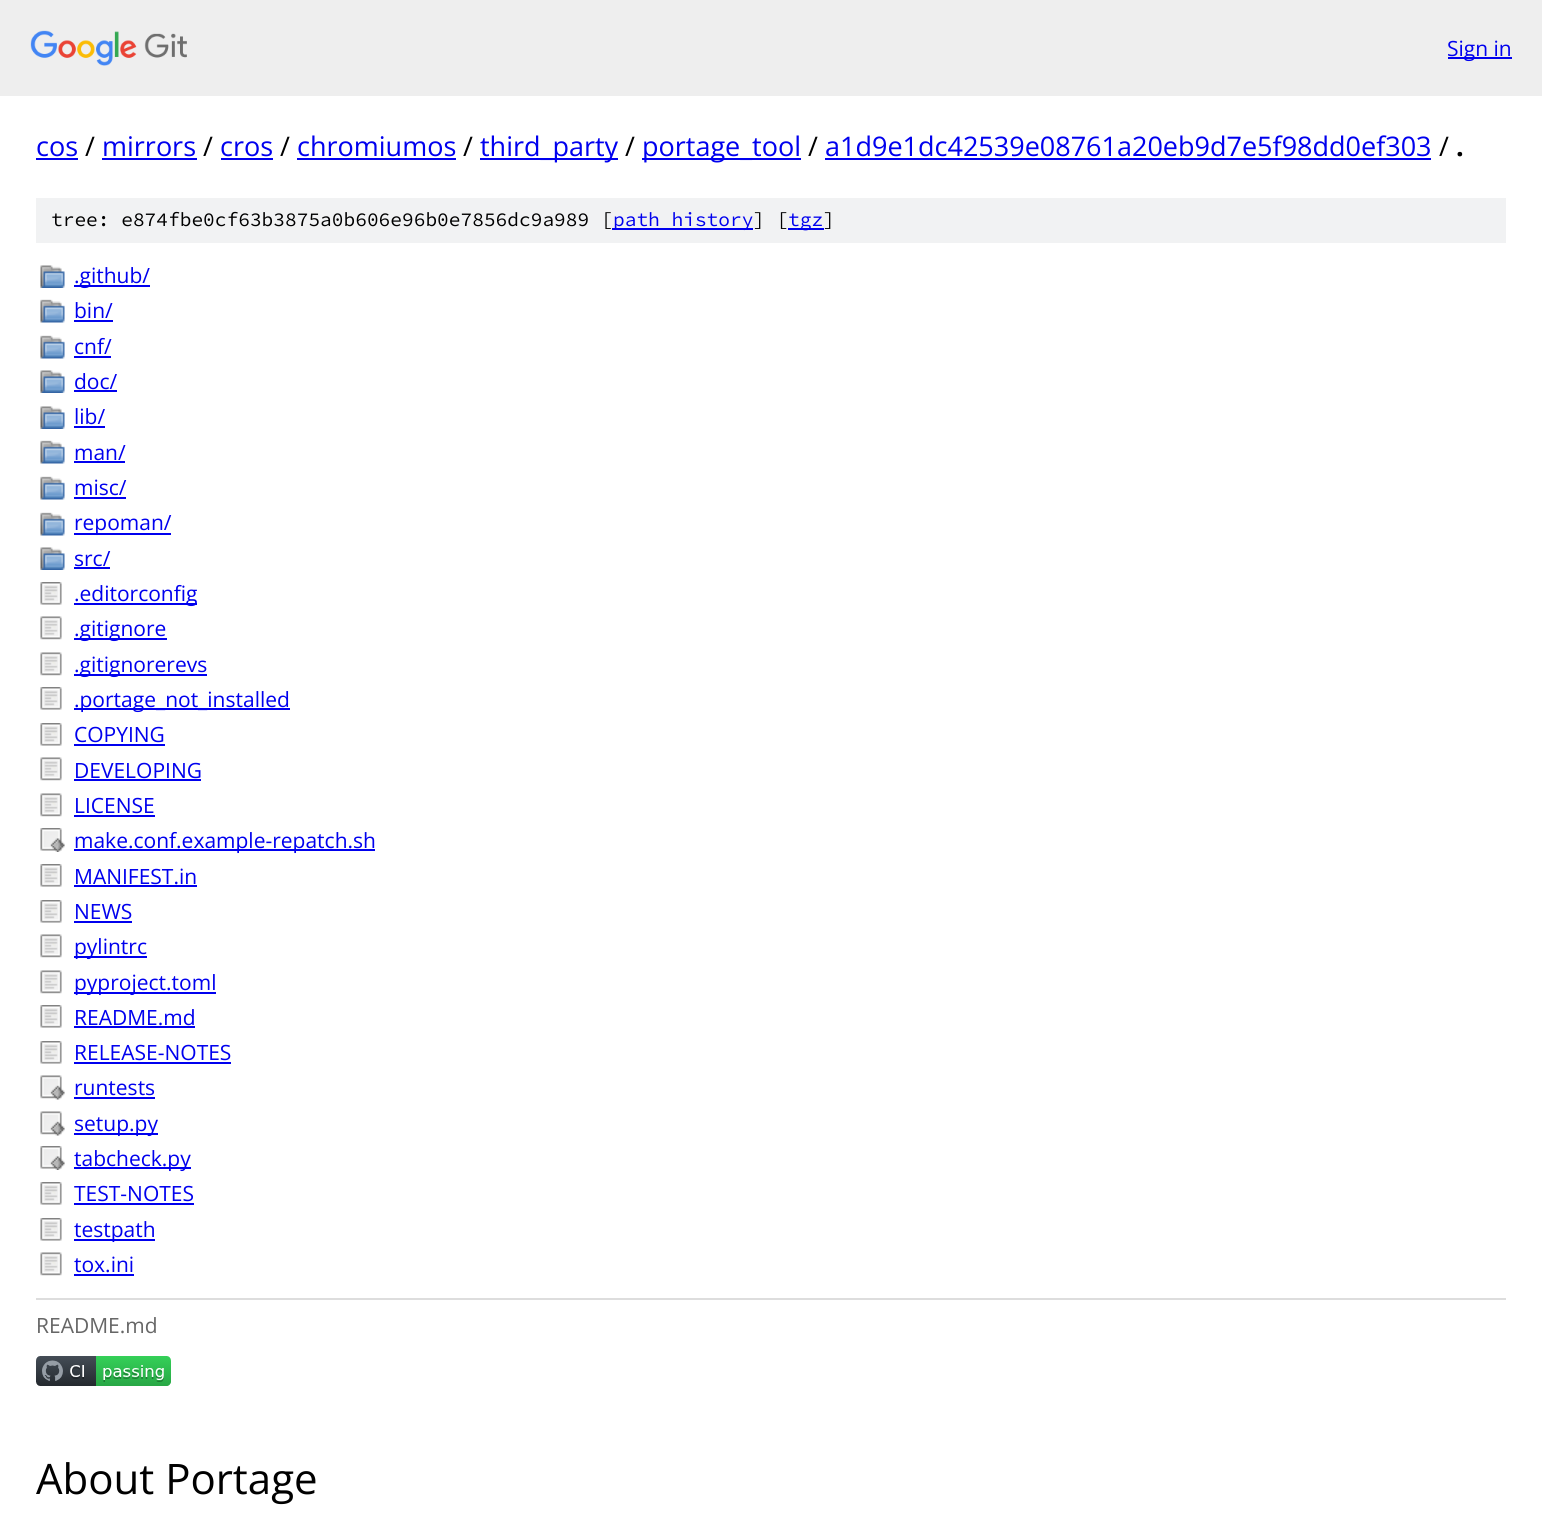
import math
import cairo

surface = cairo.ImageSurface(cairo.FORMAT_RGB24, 1542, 1534)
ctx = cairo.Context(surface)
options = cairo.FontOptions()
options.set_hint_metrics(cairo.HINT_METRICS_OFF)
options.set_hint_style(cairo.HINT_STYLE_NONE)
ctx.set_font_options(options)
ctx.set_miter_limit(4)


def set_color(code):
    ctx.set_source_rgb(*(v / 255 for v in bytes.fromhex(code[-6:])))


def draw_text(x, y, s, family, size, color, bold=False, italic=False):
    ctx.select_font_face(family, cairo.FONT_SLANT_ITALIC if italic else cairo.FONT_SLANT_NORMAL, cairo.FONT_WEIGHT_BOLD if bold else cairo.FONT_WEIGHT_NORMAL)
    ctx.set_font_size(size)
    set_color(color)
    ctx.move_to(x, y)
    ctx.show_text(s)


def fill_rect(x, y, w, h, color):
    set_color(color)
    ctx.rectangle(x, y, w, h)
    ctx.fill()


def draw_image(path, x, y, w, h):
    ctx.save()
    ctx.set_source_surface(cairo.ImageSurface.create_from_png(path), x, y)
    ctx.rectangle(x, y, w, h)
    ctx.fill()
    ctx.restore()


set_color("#ffffff")
ctx.paint()
fill_rect(0, 0, 1542, 96, "#eeeeee")
draw_image("assets/img1.png", 30, 30, 157, 36)
fill_rect(1448, 57, 64, 2, "#0000ee")
draw_text(1447, 56, "Sign in", "Open Sans", 21, "#0000ee")
draw_text(36, 156, "cos", "Open Sans", 27, "#0000ee")
fill_rect(36, 158, 42, 2, "#0000ee")
draw_text(85, 156, "/", "Open Sans", 27, "#000000")
draw_text(102, 156, "mirrors", "Open Sans", 27, "#0000ee")
fill_rect(102, 158, 95, 2, "#0000ee")
draw_text(203, 156, "/", "Open Sans", 27, "#000000")
draw_text(220, 156, "cros", "Open Sans", 27, "#0000ee")
fill_rect(221, 158, 52, 2, "#0000ee")
draw_text(280, 156, "/", "Open Sans", 27, "#000000")
draw_text(297, 156, "chromiumos", "Open Sans", 27, "#0000ee")
fill_rect(297, 158, 159, 2, "#0000ee")
draw_text(463, 156, "/", "Open Sans", 27, "#000000")
fill_rect(480, 158, 138, 2, "#0000ee")
draw_text(480, 156, "third_party", "Open Sans", 27, "#0000ee")
draw_text(625, 156, "/", "Open Sans", 27, "#000000")
fill_rect(642, 158, 159, 2, "#0000ee")
draw_text(642, 156, "portage_tool", "Open Sans", 27, "#0000ee")
draw_text(808, 156, "/", "Open Sans", 27, "#000000")
draw_text(825, 156, "a1d9e1dc42539e08761a20eb9d7e5f98dd0ef303", "Open Sans", 27, "#0000ee")
fill_rect(825, 158, 606, 2, "#0000ee")
draw_text(1439, 156, "/", "Open Sans", 27, "#000000")
draw_text(1456, 156, ".", "Open Sans", 27, "#000000", bold=True)
fill_rect(36, 198, 1470, 45, "#f1f2f3")
draw_text(51, 226, "tree: e874fbe0cf63b3875a0b606e96b0e7856dc9a989 [", "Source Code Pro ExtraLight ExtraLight", 19.5, "#000000")
fill_rect(612, 228, 141, 2, "#0000ee")
draw_text(613, 226, "path history", "Source Code Pro ExtraLight ExtraLight", 19.5, "#0000ee")
draw_text(753, 226, "] [", "Source Code Pro ExtraLight ExtraLight", 19.5, "#000000")
fill_rect(788, 228, 36, 2, "#0000ee")
draw_text(788, 226, "tgz", "Source Code Pro ExtraLight ExtraLight", 19.5, "#0000ee")
draw_text(823, 226, "]", "Source Code Pro ExtraLight ExtraLight", 19.5, "#000000")
draw_image("assets/img2.png", 40, 265, 25, 23)
fill_rect(74, 285, 76, 2, "#0000ee")
draw_text(74, 283, ".github/", "Open Sans", 21, "#0000ee")
draw_image("assets/img3.png", 40, 299, 25, 24)
draw_text(74, 318, "bin/", "Open Sans", 21, "#0000ee")
fill_rect(74, 320, 39, 2, "#0000ee")
draw_image("assets/img3.png", 40, 335, 25, 24)
draw_text(74, 354, "cnf/", "Open Sans", 21, "#0000ee")
fill_rect(74, 356, 37, 2, "#0000ee")
draw_image("assets/img2.png", 40, 370, 25, 23)
draw_text(74, 389, "doc/", "Open Sans", 21, "#0000ee")
fill_rect(74, 390, 43, 2, "#0000ee")
draw_image("assets/img2.png", 40, 406, 25, 23)
draw_text(74, 424, "lib/", "Open Sans", 21, "#0000ee")
fill_rect(74, 426, 31, 2, "#0000ee")
draw_image("assets/img3.png", 40, 440, 25, 24)
draw_text(74, 460, "man/", "Open Sans", 21, "#0000ee")
fill_rect(74, 461, 51, 2, "#0000ee")
draw_image("assets/img3.png", 40, 476, 25, 24)
draw_text(74, 495, "misc/", "Open Sans", 21, "#0000ee")
fill_rect(74, 497, 52, 2, "#0000ee")
draw_image("assets/img3.png", 40, 512, 25, 24)
fill_rect(74, 533, 97, 2, "#0000ee")
draw_text(74, 530, "repoman/", "Open Sans", 21, "#0000ee")
draw_image("assets/img2.png", 40, 547, 25, 23)
draw_text(74, 566, "src/", "Open Sans", 21, "#0000ee")
fill_rect(74, 567, 36, 2, "#0000ee")
draw_image("assets/img4.png", 40, 582, 22, 23)
fill_rect(74, 603, 123, 2, "#0000ee")
draw_text(74, 601, ".editorconfig", "Open Sans", 21, "#0000ee")
draw_image("assets/img5.png", 40, 616, 22, 24)
fill_rect(74, 638, 93, 2, "#0000ee")
draw_text(74, 636, ".gitignore", "Open Sans", 21, "#0000ee")
draw_image("assets/img5.png", 40, 652, 22, 24)
fill_rect(74, 674, 133, 2, "#0000ee")
draw_text(74, 672, ".gitignorerevs", "Open Sans", 21, "#0000ee")
draw_image("assets/img4.png", 40, 687, 22, 23)
fill_rect(74, 708, 216, 2, "#0000ee")
draw_text(74, 707, ".portage_not_installed", "Open Sans", 21, "#0000ee")
draw_image("assets/img4.png", 40, 723, 22, 23)
draw_text(74, 742, "COPYING", "Open Sans", 21, "#0000ee")
fill_rect(74, 744, 91, 2, "#0000ee")
draw_image("assets/img5.png", 40, 757, 22, 24)
draw_text(74, 778, "DEVELOPING", "Open Sans", 21, "#0000ee")
fill_rect(74, 779, 127, 2, "#0000ee")
draw_image("assets/img5.png", 40, 793, 22, 24)
draw_text(74, 813, "LICENSE", "Open Sans", 21, "#0000ee")
fill_rect(74, 815, 81, 2, "#0000ee")
draw_image("assets/img6.png", 40, 828, 25, 24)
fill_rect(74, 849, 301, 2, "#0000ee")
draw_text(74, 848, "make.conf.example-repatch.sh", "Open Sans", 21, "#0000ee")
draw_image("assets/img4.png", 40, 864, 22, 23)
draw_text(74, 884, "MANIFEST.in", "Open Sans", 21, "#0000ee")
fill_rect(74, 885, 123, 2, "#0000ee")
draw_image("assets/img4.png", 40, 900, 22, 23)
draw_text(74, 919, "NEWS", "Open Sans", 21, "#0000ee")
fill_rect(74, 921, 58, 2, "#0000ee")
draw_image("assets/img5.png", 40, 934, 22, 24)
fill_rect(74, 956, 73, 2, "#0000ee")
draw_text(74, 954, "pylintrc", "Open Sans", 21, "#0000ee")
draw_image("assets/img5.png", 40, 970, 22, 24)
fill_rect(74, 992, 142, 2, "#0000ee")
draw_text(74, 990, "pyproject.toml", "Open Sans", 21, "#0000ee")
draw_image("assets/img4.png", 40, 1005, 22, 23)
draw_text(74, 1025, "README.md", "Open Sans", 21, "#0000ee")
fill_rect(74, 1026, 121, 2, "#0000ee")
draw_image("assets/img4.png", 40, 1041, 22, 23)
draw_text(74, 1060, "RELEASE-NOTES", "Open Sans", 21, "#0000ee")
fill_rect(74, 1062, 157, 2, "#0000ee")
draw_image("assets/img7.png", 40, 1075, 25, 25)
draw_text(74, 1095, "runtests", "Open Sans", 21, "#0000ee")
fill_rect(74, 1097, 81, 2, "#0000ee")
draw_image("assets/img7.png", 40, 1111, 25, 25)
fill_rect(74, 1133, 84, 2, "#0000ee")
draw_text(74, 1131, "setup.py", "Open Sans", 21, "#0000ee")
draw_image("assets/img6.png", 40, 1146, 25, 24)
fill_rect(74, 1167, 117, 2, "#0000ee")
draw_text(74, 1166, "tabcheck.py", "Open Sans", 21, "#0000ee")
draw_image("assets/img4.png", 40, 1182, 22, 23)
draw_text(74, 1201, "TEST-NOTES", "Open Sans", 21, "#0000ee")
fill_rect(74, 1203, 120, 2, "#0000ee")
draw_image("assets/img4.png", 40, 1218, 22, 23)
fill_rect(74, 1239, 81, 2, "#0000ee")
draw_text(74, 1237, "testpath", "Open Sans", 21, "#0000ee")
draw_image("assets/img5.png", 40, 1252, 22, 24)
draw_text(74, 1272, "tox.ini", "Open Sans", 21, "#0000ee")
fill_rect(74, 1274, 60, 2, "#0000ee")
fill_rect(36, 1298, 1470, 2, "#dddddd")
draw_text(36, 1333, "README.md", "Open Sans", 21, "#666666")
draw_image("assets/img8.png", 36, 1356, 135, 30)
draw_text(36, 1494, "About Portage", "Open Sans", 42, "#000000")
surface.write_to_png("output.png")
